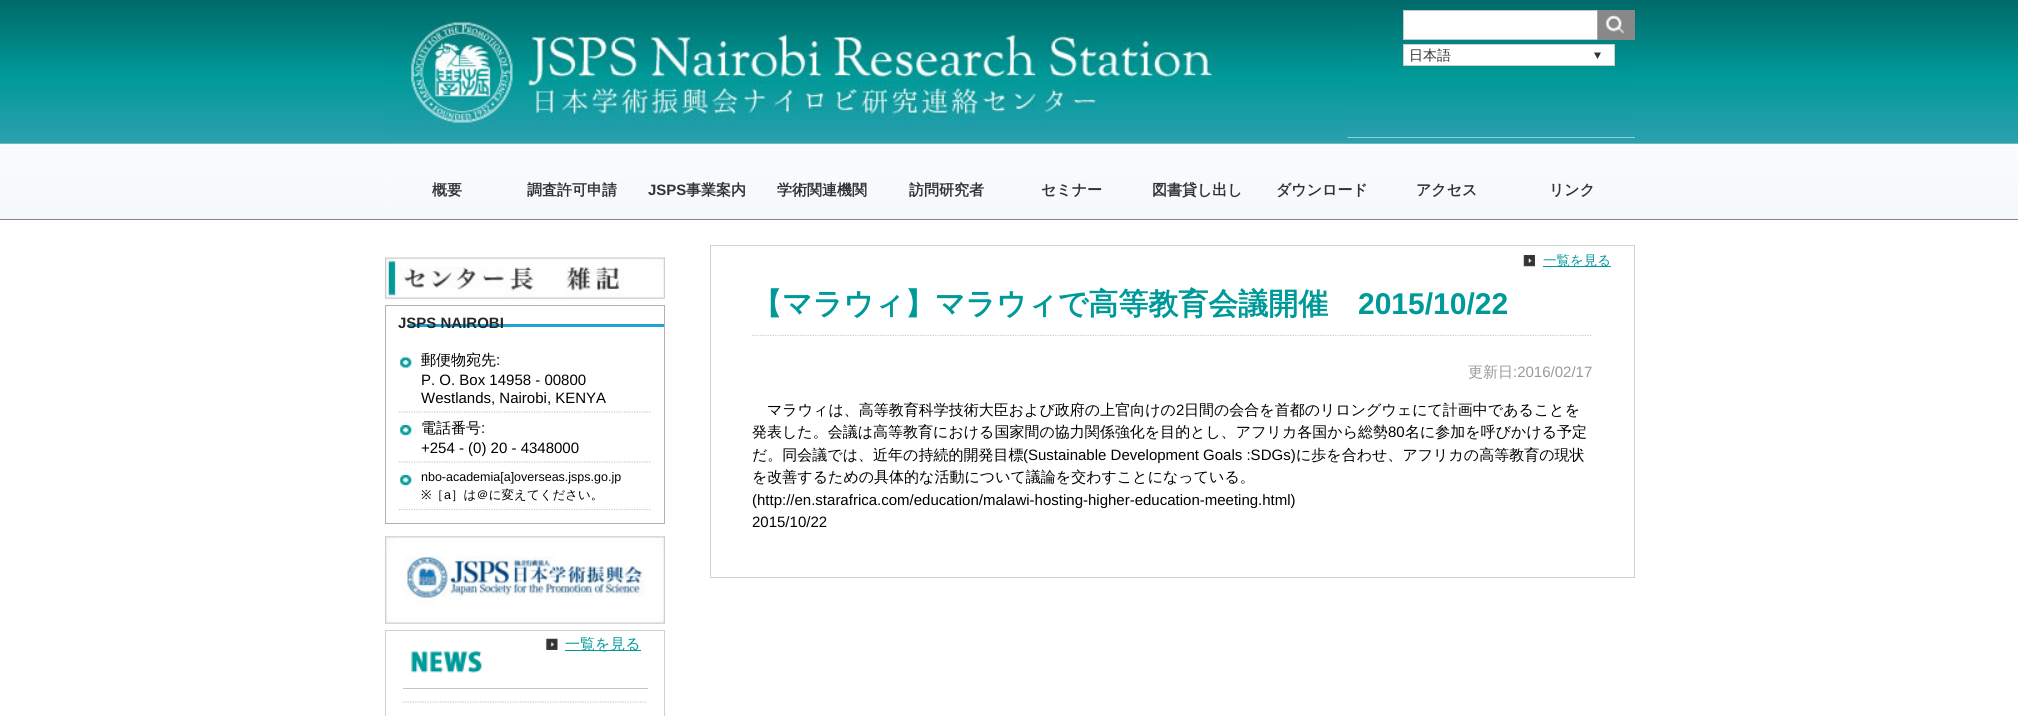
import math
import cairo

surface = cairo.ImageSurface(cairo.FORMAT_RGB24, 2018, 716)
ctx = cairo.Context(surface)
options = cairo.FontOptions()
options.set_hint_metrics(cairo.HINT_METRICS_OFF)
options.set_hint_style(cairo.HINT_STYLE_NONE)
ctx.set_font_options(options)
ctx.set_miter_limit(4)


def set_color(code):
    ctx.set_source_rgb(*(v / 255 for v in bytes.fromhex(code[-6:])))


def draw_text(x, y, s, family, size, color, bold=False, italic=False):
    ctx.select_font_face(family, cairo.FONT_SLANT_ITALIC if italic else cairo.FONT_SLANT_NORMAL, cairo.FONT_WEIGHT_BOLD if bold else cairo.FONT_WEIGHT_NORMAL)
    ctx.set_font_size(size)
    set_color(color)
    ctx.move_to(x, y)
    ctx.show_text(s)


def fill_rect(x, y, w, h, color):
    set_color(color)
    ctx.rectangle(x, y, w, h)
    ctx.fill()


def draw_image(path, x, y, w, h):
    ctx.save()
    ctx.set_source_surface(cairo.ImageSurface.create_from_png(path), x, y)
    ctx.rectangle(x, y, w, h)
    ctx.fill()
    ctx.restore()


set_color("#ffffff")
ctx.paint()
draw_image("assets/img1.png", 0, 0, 2018, 219)
fill_rect(0, 219, 2018, 1, "#878787")
fill_rect(1347, 137, 288, 1, "#ffffff")
draw_image("assets/img2.png", 385, 0, 1250, 138)
draw_image("assets/img3.png", 385, 20, 963, 118)
ctx.rectangle(1403.5, 10.5, 194, 29)
ctx.fill_preserve()
set_color("#c7c7c7")
ctx.set_line_width(1)
ctx.stroke()
draw_image("assets/img4.png", 1597, 10, 38, 30)
set_color("#ffffff")
ctx.rectangle(1403.5, 44.5, 211, 21)
ctx.fill_preserve()
set_color("#cdcdcd")
ctx.stroke()
draw_text(1409, 60, "日本語", "WenQuanYi Zen Hei Medium", 14, "#333333")
ctx.new_path()
ctx.move_to(1594, 52.5)
ctx.line_to(1601, 52.5)
ctx.line_to(1597.5, 59)
ctx.close_path()
ctx.fill()
draw_image("assets/img5.png", 385, 161, 3, 1)
draw_image("assets/img6.png", 385, 161, 4, 51)
draw_text(432, 195, "概要", "WenQuanYi Zen Hei", 15, "#333333", bold=True)
draw_text(527, 195, "調査許可申請", "WenQuanYi Zen Hei", 15, "#333333", bold=True)
draw_text(648, 195, "JSPS", "Liberation Sans", 15, "#333333", bold=True)
draw_text(686, 195, "事業案内", "WenQuanYi Zen Hei", 15, "#333333", bold=True)
draw_text(777, 195, "学術関連機関", "WenQuanYi Zen Hei", 15, "#333333", bold=True)
draw_text(909, 195, "訪問研究者", "WenQuanYi Zen Hei", 15, "#333333", bold=True)
draw_text(1041, 195, "セミナー", "WenQuanYi Zen Hei", 15, "#333333", bold=True)
draw_text(1152, 195, "図書貸し出し", "WenQuanYi Zen Hei", 15, "#333333", bold=True)
draw_text(1276, 195, "ダウンロード", "WenQuanYi Zen Hei", 15, "#333333", bold=True)
draw_text(1416, 195, "アクセス", "WenQuanYi Zen Hei", 15, "#333333", bold=True)
draw_text(1549, 195, "リンク", "WenQuanYi Zen Hei", 15, "#333333", bold=True)
draw_image("assets/img7.png", 385, 257, 280, 42)
ctx.rectangle(385.5, 305.5, 279, 218)
set_color("#b1b1b1")
ctx.stroke()
fill_rect(408, 324, 256, 3, "#1fa5d2")
draw_text(398, 328, "JSPS NAIROBI", "Liberation Sans", 15, "#272727", bold=True)
draw_image("assets/img8.png", 400, 357, 12, 11)
ctx.new_path()
ctx.move_to(399, 412)
ctx.line_to(651, 412)
set_color("#cccccc")
ctx.set_line_width(1.2)
ctx.set_dash([1.25, 1.25])
ctx.stroke()
draw_text(421, 365, "郵便物宛先", "WenQuanYi Zen Hei Medium", 15, "#000000")
draw_text(496, 365, ":", "Liberation Sans", 15, "#000000")
draw_text(421, 385, "P. O. Box 14958 - 00800", "Liberation Sans", 15, "#000000")
draw_text(421, 403, "Westlands, Nairobi, KENYA", "Liberation Sans", 15, "#000000")
draw_image("assets/img9.png", 400, 425, 12, 11)
ctx.new_path()
ctx.move_to(399, 462)
ctx.line_to(651, 462)
set_color("#cccccc")
ctx.stroke()
draw_text(421, 433, "電話番号", "WenQuanYi Zen Hei Medium", 15, "#000000")
draw_text(481, 433, ":", "Liberation Sans", 15, "#000000")
draw_text(421, 453, "+254 - (0) 20 - 4348000", "Liberation Sans", 15, "#000000")
draw_image("assets/img9.png", 400, 475, 12, 11)
ctx.new_path()
ctx.move_to(399, 509.5)
ctx.line_to(651, 509.5)
set_color("#cccccc")
ctx.stroke()
draw_text(421, 481, "nbo-academia[a]overseas.jsps.go.jp", "Liberation Sans", 12.5, "#000000")
draw_text(421, 499, "※", "Noto Sans", 12.5, "#000000")
draw_text(431, 499, "［", "WenQuanYi Zen Hei Medium", 12.5, "#000000")
draw_text(444, 499, "a", "Liberation Sans", 12.5, "#000000")
draw_text(451, 499, "］は＠に変えてください。", "WenQuanYi Zen Hei Medium", 12.5, "#000000")
draw_image("assets/img10.png", 385, 536, 280, 88)
ctx.rectangle(385.5, 630.5, 279, 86)
set_color("#d1d1d1")
ctx.set_line_width(1)
ctx.set_dash([])
ctx.stroke()
draw_image("assets/img11.png", 546, 638, 12, 12)
fill_rect(565, 650, 76, 1, "#009999")
draw_text(565, 649, "一覧を見る", "WenQuanYi Zen Hei Medium", 15, "#009999")
fill_rect(403, 688, 245, 1, "#c5c5c5")
draw_image("assets/img12.png", 411, 651, 71, 22)
ctx.new_path()
ctx.move_to(402.5, 702)
ctx.line_to(647.5, 702)
set_color("#cccccc")
ctx.set_line_width(1.2)
ctx.set_dash([1.25, 1.25])
ctx.stroke()
ctx.rectangle(710.5, 245.5, 924, 332)
set_color("#d1d1d1")
ctx.set_line_width(1)
ctx.set_dash([])
ctx.stroke()
draw_image("assets/img13.png", 1523, 255, 12, 12)
fill_rect(1543, 266, 68, 1, "#009999")
draw_text(1543, 265, "一覧を見る", "WenQuanYi Zen Hei Medium", 13.5, "#009999")
ctx.new_path()
ctx.move_to(752.5, 335.5)
ctx.line_to(1592.5, 335.5)
set_color("#cccccc")
ctx.set_line_width(1.2)
ctx.set_dash([1.25, 1.25])
ctx.stroke()
draw_text(752, 314, "【マラウィ】マラウィで高等教育会議開催", "WenQuanYi Zen Hei", 30, "#009999", bold=True)
draw_text(1358, 314, "2015/10/22", "Liberation Sans", 30, "#009999", bold=True)
draw_text(1468, 377, "更新日", "WenQuanYi Zen Hei Medium", 15, "#999999")
draw_text(1513, 377, ":2016/02/17", "Liberation Sans", 15, "#999999")
draw_text(767, 415, "マラウィは、高等教育科学技術大臣および政府の上官向けの", "WenQuanYi Zen Hei Medium", 15, "#000000")
draw_text(1176, 415, "2", "Liberation Sans", 15, "#000000")
draw_text(1184, 415, "日間の会合を首都のリロングウェにて計画中であることを", "WenQuanYi Zen Hei Medium", 15, "#000000")
draw_text(752, 437, "発表した。会議は高等教育における国家間の協力関係強化を目的とし、アフリカ各国から総勢", "WenQuanYi Zen Hei Medium", 15, "#000000")
draw_text(1388, 437, "80", "Liberation Sans", 15, "#000000")
draw_text(1405, 437, "名に参加を呼びかける予定", "WenQuanYi Zen Hei Medium", 15, "#000000")
draw_text(752, 460, "だ。同会議では、近年の持続的開発目標", "WenQuanYi Zen Hei Medium", 15, "#000000")
draw_text(1023, 460, "(Sustainable Development Goals :SDGs)", "Liberation Sans", 15, "#000000")
draw_text(1296, 460, "に歩を合わせ、アフリカの高等教育の現状", "WenQuanYi Zen Hei Medium", 15, "#000000")
draw_text(752, 482, "を改善するための具体的な活動について議論を交わすことになっている。", "WenQuanYi Zen Hei Medium", 15, "#000000")
draw_text(752, 505, "(http://en.starafrica.com/education/malawi-hosting-higher-education-meeting.html)", "Liberation Sans", 15, "#000000")
draw_text(752, 527, "2015/10/22", "Liberation Sans", 15, "#000000")
surface.write_to_png("output.png")
